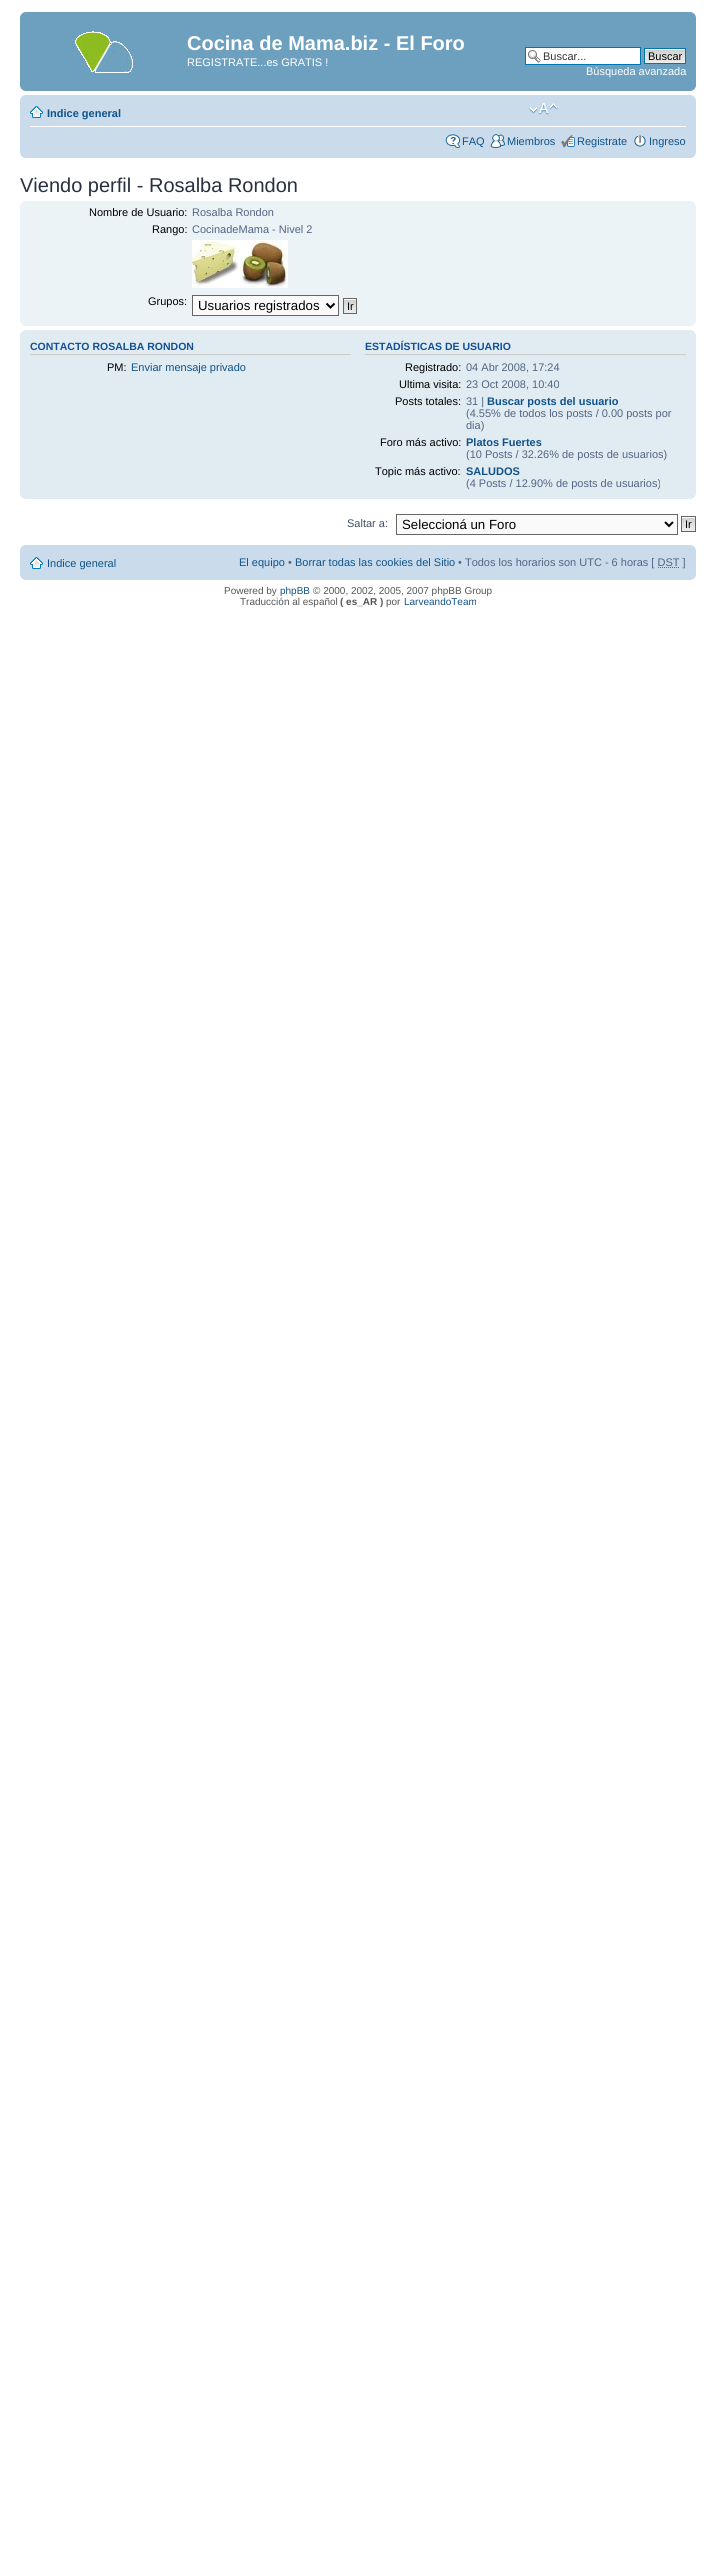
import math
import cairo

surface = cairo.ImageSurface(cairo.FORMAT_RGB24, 716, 2576)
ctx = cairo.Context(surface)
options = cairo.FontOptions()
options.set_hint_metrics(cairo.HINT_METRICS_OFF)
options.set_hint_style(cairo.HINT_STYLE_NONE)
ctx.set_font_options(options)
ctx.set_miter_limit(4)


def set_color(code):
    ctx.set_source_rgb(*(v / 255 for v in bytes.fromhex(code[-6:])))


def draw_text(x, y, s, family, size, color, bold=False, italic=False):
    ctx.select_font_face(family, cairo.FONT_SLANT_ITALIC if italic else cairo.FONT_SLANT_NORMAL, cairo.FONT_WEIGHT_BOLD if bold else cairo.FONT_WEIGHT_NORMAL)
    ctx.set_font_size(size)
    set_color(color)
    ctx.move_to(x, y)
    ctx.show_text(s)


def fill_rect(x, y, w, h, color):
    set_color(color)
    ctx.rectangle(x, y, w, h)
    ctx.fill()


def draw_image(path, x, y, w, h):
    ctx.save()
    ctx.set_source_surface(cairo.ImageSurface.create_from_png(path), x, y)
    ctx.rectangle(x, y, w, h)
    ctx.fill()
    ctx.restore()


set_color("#ffffff")
ctx.paint()
fill_rect(20, 12, 676, 79, "#6da0bf")
draw_image("assets/img1.png", 20, 12, 5, 5)
draw_image("assets/img2.png", 691, 12, 5, 5)
draw_image("assets/img3.png", 75, 31, 58, 42)
draw_text(187, 50, "Cocina de Mama.biz - El Foro", "Liberation Sans", 20, "#ffffff", bold=True)
draw_text(187, 66, "REGISTRATE...es GRATIS !", "Liberation Sans", 11, "#ffffff")
fill_rect(526, 48, 114, 16, "#ffffff")
draw_image("assets/img4.png", 528, 50, 13, 13)
ctx.rectangle(525.5, 47.5, 115, 17)
set_color("#0075b0")
ctx.set_line_width(1)
ctx.stroke()
draw_text(543, 60, "Buscar...", "Liberation Sans", 11, "#333333")
draw_image("assets/img5.png", 645, 49, 40, 14)
ctx.rectangle(644.5, 48.5, 41, 15)
set_color("#0075b0")
ctx.stroke()
draw_text(648, 60, "Buscar", "Liberation Sans", 11, "#000000")
draw_text(586, 75, "Búsqueda avanzada", "Liberation Sans", 11, "#ffffff")
draw_image("assets/img6.png", 20, 86, 5, 5)
draw_image("assets/img7.png", 691, 86, 5, 5)
fill_rect(20, 95, 676, 63, "#cadceb")
draw_image("assets/img8.png", 20, 95, 5, 5)
draw_image("assets/img9.png", 691, 95, 5, 5)
fill_rect(30, 126, 656, 1, "#ffffff")
draw_image("assets/img10.png", 30, 106, 13, 12)
draw_text(47, 117, "Indice general", "Liberation Sans", 11, "#105289", bold=True)
draw_image("assets/img11.png", 529, 103, 29, 12)
draw_image("assets/img12.png", 445, 134, 16, 14)
draw_text(462, 145, "FAQ", "Liberation Sans", 11, "#105289")
draw_image("assets/img13.png", 490, 134, 16, 14)
draw_text(507, 145, "Miembros", "Liberation Sans", 11, "#105289")
draw_image("assets/img14.png", 561, 135, 14, 13)
draw_text(577, 145, "Registrate", "Liberation Sans", 11, "#105289")
draw_image("assets/img15.png", 634, 135, 12, 12)
draw_text(649, 145, "Ingreso", "Liberation Sans", 11, "#105289")
draw_image("assets/img16.png", 20, 153, 5, 5)
draw_image("assets/img17.png", 691, 153, 5, 5)
draw_text(20, 192, "Viendo perfil - Rosalba Rondon", "Liberation Sans", 20, "#28313f")
fill_rect(20, 201, 676, 125, "#ecf3f7")
draw_image("assets/img18.png", 20, 201, 5, 5)
draw_image("assets/img19.png", 691, 201, 5, 5)
draw_text(89, 216, "Nombre de Usuario:", "Liberation Sans", 11, "#000000")
draw_text(192, 216, "Rosalba Rondon", "Liberation Sans", 11, "#536482")
draw_text(152, 233, "Rango:", "Liberation Sans", 11, "#000000")
draw_text(192, 233, "CocinadeMama - Nivel 2", "Liberation Sans", 11, "#536482")
draw_image("assets/img20.png", 192, 240, 96, 48)
draw_text(148, 305, "Grupos:", "Liberation Sans", 11, "#000000")
set_color("#fafafa")
ctx.rectangle(192.5, 295.5, 146, 20)
ctx.fill_preserve()
set_color("#666666")
ctx.stroke()
ctx.new_path()
ctx.move_to(326.5, 303.5)
ctx.line_to(330.5, 307.5)
ctx.line_to(334.5, 303.5)
set_color("#000000")
ctx.set_line_width(2)
ctx.stroke()
draw_text(198, 310, "Usuarios registrados", "Liberation Sans", 13.25, "#000000")
draw_image("assets/img21.png", 344, 299, 12, 14)
ctx.rectangle(343.5, 298.5, 13, 15)
set_color("#666666")
ctx.set_line_width(1)
ctx.stroke()
draw_text(347, 310, "Ir", "Liberation Sans", 11, "#000000")
draw_image("assets/img22.png", 20, 321, 5, 5)
draw_image("assets/img23.png", 691, 321, 5, 5)
fill_rect(20, 330, 676, 169, "#e1ebf2")
draw_image("assets/img24.png", 20, 330, 5, 5)
draw_image("assets/img25.png", 691, 330, 5, 5)
fill_rect(30, 354, 321, 1, "#cccccc")
draw_text(30, 350, "CONTACTO ROSALBA RONDON", "Liberation Sans", 10.5, "#115098", bold=True)
draw_text(107, 371, "PM:", "Liberation Sans", 11, "#000000")
draw_text(131, 371, "Enviar mensaje privado", "Liberation Sans", 11, "#105289")
fill_rect(365, 354, 321, 1, "#cccccc")
draw_text(365, 350, "ESTADÍSTICAS DE USUARIO", "Liberation Sans", 10.5, "#115098", bold=True)
draw_text(405, 371, "Registrado:", "Liberation Sans", 11, "#000000")
draw_text(466, 371, "04 Abr 2008, 17:24", "Liberation Sans", 11, "#536482")
draw_text(399, 388, "Ultima visita:", "Liberation Sans", 11, "#000000")
draw_text(466, 388, "23 Oct 2008, 10:40", "Liberation Sans", 11, "#536482")
draw_text(395, 405, "Posts totales:", "Liberation Sans", 11, "#000000")
draw_text(466, 405, "31 |", "Liberation Sans", 11, "#536482")
draw_text(487, 405, "Buscar posts del usuario", "Liberation Sans", 11, "#105289", bold=True)
draw_text(466, 417, "(4.55% de todos los posts / 0.00 posts por", "Liberation Sans", 11, "#536482")
draw_text(466, 429, "dia)", "Liberation Sans", 11, "#536482")
draw_text(380, 446, "Foro más activo:", "Liberation Sans", 11, "#000000")
draw_text(466, 446, "Platos Fuertes", "Liberation Sans", 11, "#105289", bold=True)
draw_text(466, 458, "(10 Posts / 32.26% de posts de usuarios)", "Liberation Sans", 11, "#536482")
draw_text(375, 475, "Topic más activo:", "Liberation Sans", 11, "#000000")
draw_text(466, 475, "SALUDOS", "Liberation Sans", 11, "#105289", bold=True)
draw_text(466, 487, "(4 Posts / 12.90% de posts de usuarios)", "Liberation Sans", 11, "#536482")
draw_image("assets/img26.png", 20, 494, 5, 5)
draw_image("assets/img27.png", 691, 494, 5, 5)
draw_text(347, 527, "Saltar a:", "Liberation Sans", 11, "#425067")
set_color("#fafafa")
ctx.rectangle(396.5, 514.5, 281, 20)
ctx.fill_preserve()
set_color("#666666")
ctx.stroke()
ctx.new_path()
ctx.move_to(665, 522)
ctx.line_to(669, 526)
ctx.line_to(673, 522)
set_color("#000000")
ctx.set_line_width(2)
ctx.stroke()
draw_text(402, 529, "Seleccioná un Foro", "Liberation Sans", 13.25, "#000000")
draw_image("assets/img28.png", 682, 517, 13, 14)
ctx.rectangle(681.5, 516.5, 14, 15)
set_color("#666666")
ctx.set_line_width(1)
ctx.stroke()
draw_text(685, 528, "Ir", "Liberation Sans", 11, "#000000")
fill_rect(20, 545, 676, 35, "#cadceb")
draw_image("assets/img8.png", 20, 545, 5, 5)
draw_image("assets/img9.png", 691, 545, 5, 5)
draw_image("assets/img10.png", 30, 557, 13, 12)
draw_text(47, 567, "Indice general", "Liberation Sans", 11, "#105289")
draw_text(239, 566, "El equipo", "Liberation Sans", 11, "#105289")
draw_text(288, 566, "•", "Liberation Sans", 11, "#536482")
draw_text(295, 566, "Borrar todas las cookies del Sitio", "Liberation Sans", 11, "#105289")
draw_text(458, 566, "• Todos los horarios son UTC - 6 horas [ DST ]", "Liberation Sans", 11, "#536482")
ctx.new_path()
ctx.move_to(658, 567.5)
ctx.line_to(680, 567.5)
ctx.set_dash([1, 1])
ctx.stroke()
draw_image("assets/img16.png", 20, 575, 5, 5)
draw_image("assets/img17.png", 691, 575, 5, 5)
draw_text(224, 594, "Powered by", "Liberation Sans", 10, "#555555")
draw_text(280, 594, "phpBB", "Liberation Sans", 10, "#105289")
draw_text(313, 594, "© 2000, 2002, 2005, 2007 phpBB Group", "Liberation Sans", 10, "#555555")
draw_text(240, 605, "Traducción al español", "Liberation Sans", 10, "#555555")
draw_text(340, 605, "( es_AR )", "Liberation Sans", 10, "#555555", bold=True)
draw_text(386, 605, "por", "Liberation Sans", 10, "#555555")
draw_text(404, 605, "LarveandoTeam", "Liberation Sans", 10, "#105289")
surface.write_to_png("output.png")
